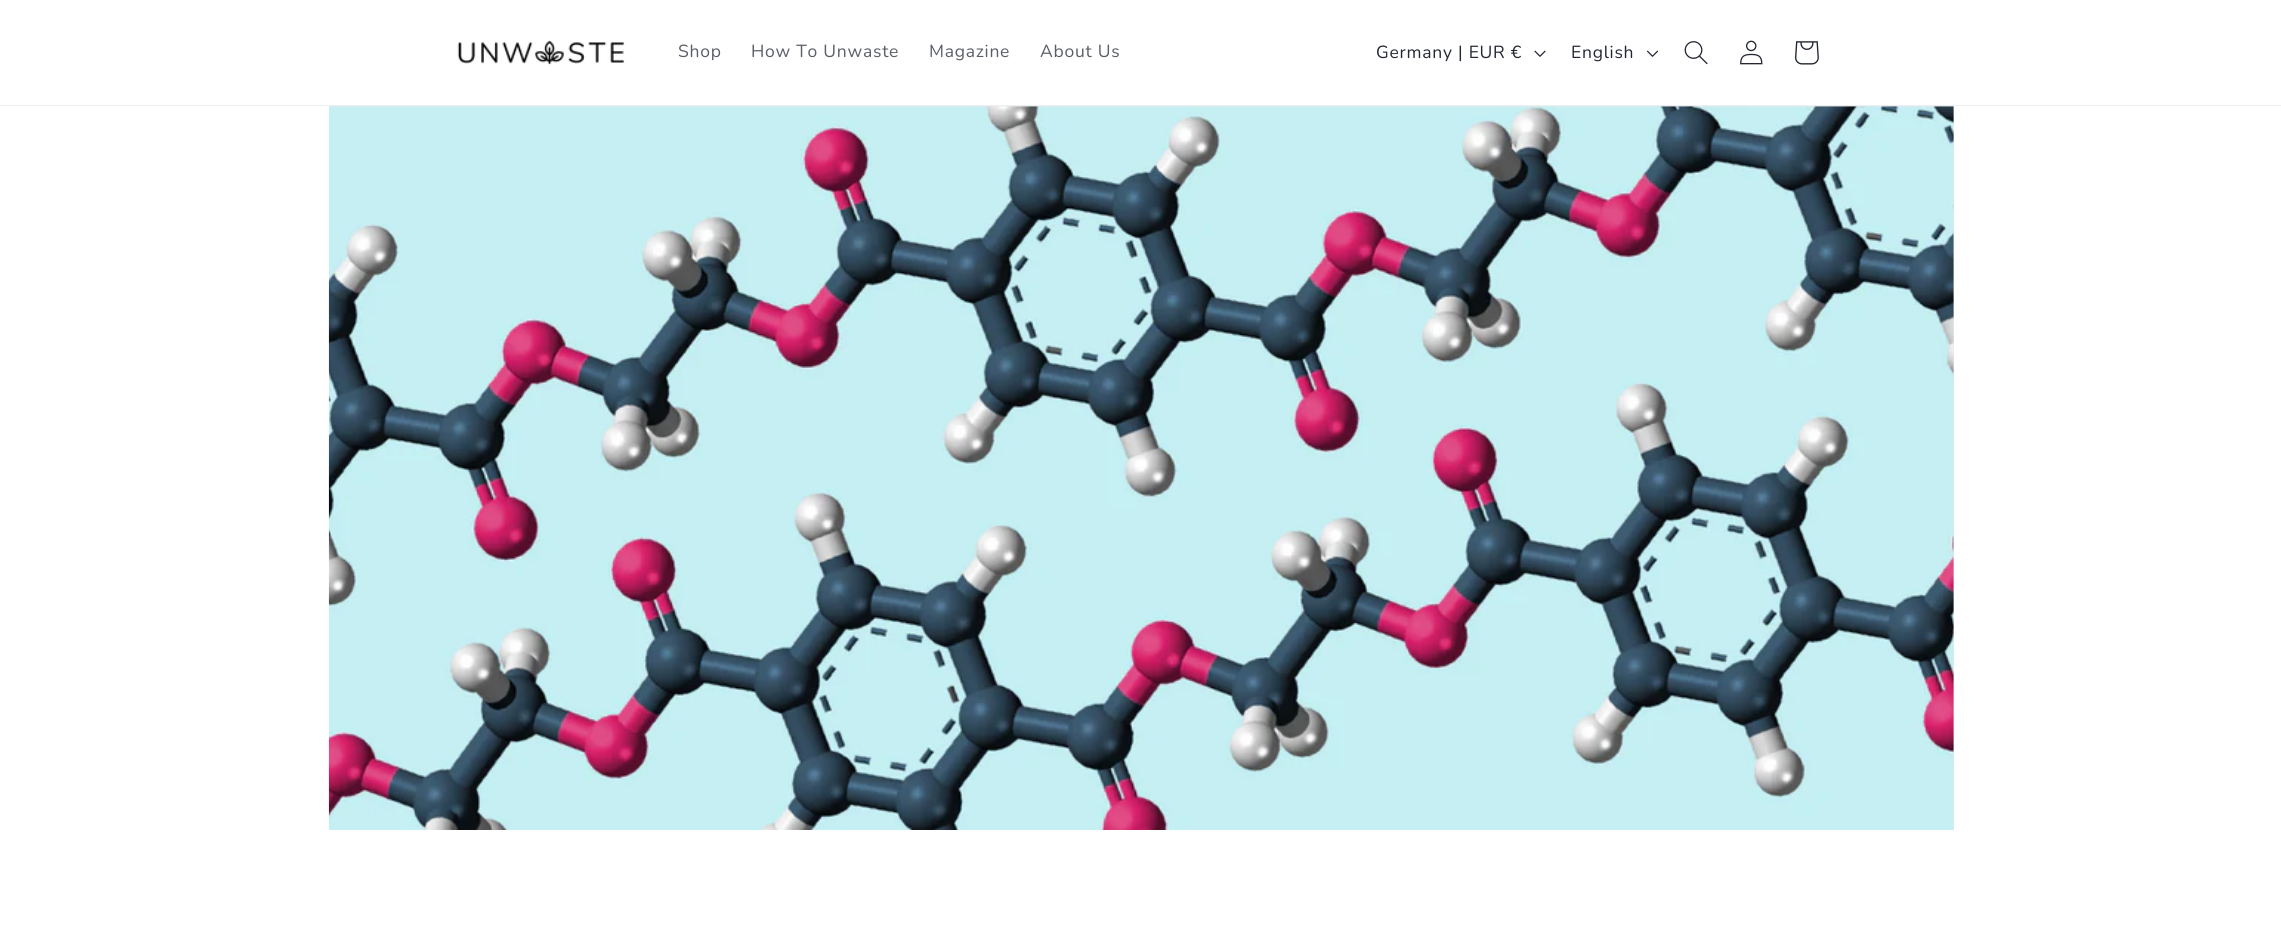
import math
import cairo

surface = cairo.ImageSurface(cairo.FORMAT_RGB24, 2281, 926)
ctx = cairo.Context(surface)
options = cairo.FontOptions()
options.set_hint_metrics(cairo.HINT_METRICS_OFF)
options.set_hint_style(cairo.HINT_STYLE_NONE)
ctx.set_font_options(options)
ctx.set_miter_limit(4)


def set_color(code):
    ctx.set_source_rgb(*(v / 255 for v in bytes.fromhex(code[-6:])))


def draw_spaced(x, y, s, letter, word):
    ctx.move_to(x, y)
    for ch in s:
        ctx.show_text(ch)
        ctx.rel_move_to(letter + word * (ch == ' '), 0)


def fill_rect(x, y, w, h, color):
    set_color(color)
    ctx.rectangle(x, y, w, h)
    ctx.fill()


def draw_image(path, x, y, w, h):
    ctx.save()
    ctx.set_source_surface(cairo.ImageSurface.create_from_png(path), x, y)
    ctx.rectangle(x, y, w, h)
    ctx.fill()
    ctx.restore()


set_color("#ffffff")
ctx.paint()
fill_rect(0, 105, 2281, 1, "#edeeef")
draw_image("assets/img1.png", 457, 40, 168, 25)
ctx.select_font_face("Nunito")
ctx.set_font_size(17.5)
set_color("#5b5e66")
draw_spaced(678, 57, "Shop", 0.75, 0)
draw_spaced(751, 57, "How To Unwaste", 0.75, 0)
draw_spaced(929, 57, "Magazine", 0.75, 0)
draw_spaced(1040, 57, "About Us", 0.75, 0)
set_color("#242833")
draw_spaced(1376, 58, "Germany | EUR €", 0.75, 0)
draw_image("assets/img2.png", 1534, 50, 12, 7)
draw_spaced(1571, 58, "English", 0.75, 0)
draw_image("assets/img3.png", 1646, 50, 13, 7)
draw_image("assets/img4.png", 1684, 41, 24, 24)
draw_image("assets/img5.png", 1740, 40, 23, 25)
draw_image("assets/img6.png", 1795, 41, 24, 24)
fill_rect(329, 106, 1625, 724, "#eaeaeb")
draw_image("assets/img7.png", 328, 106, 1626, 724)
surface.write_to_png("output.png")
